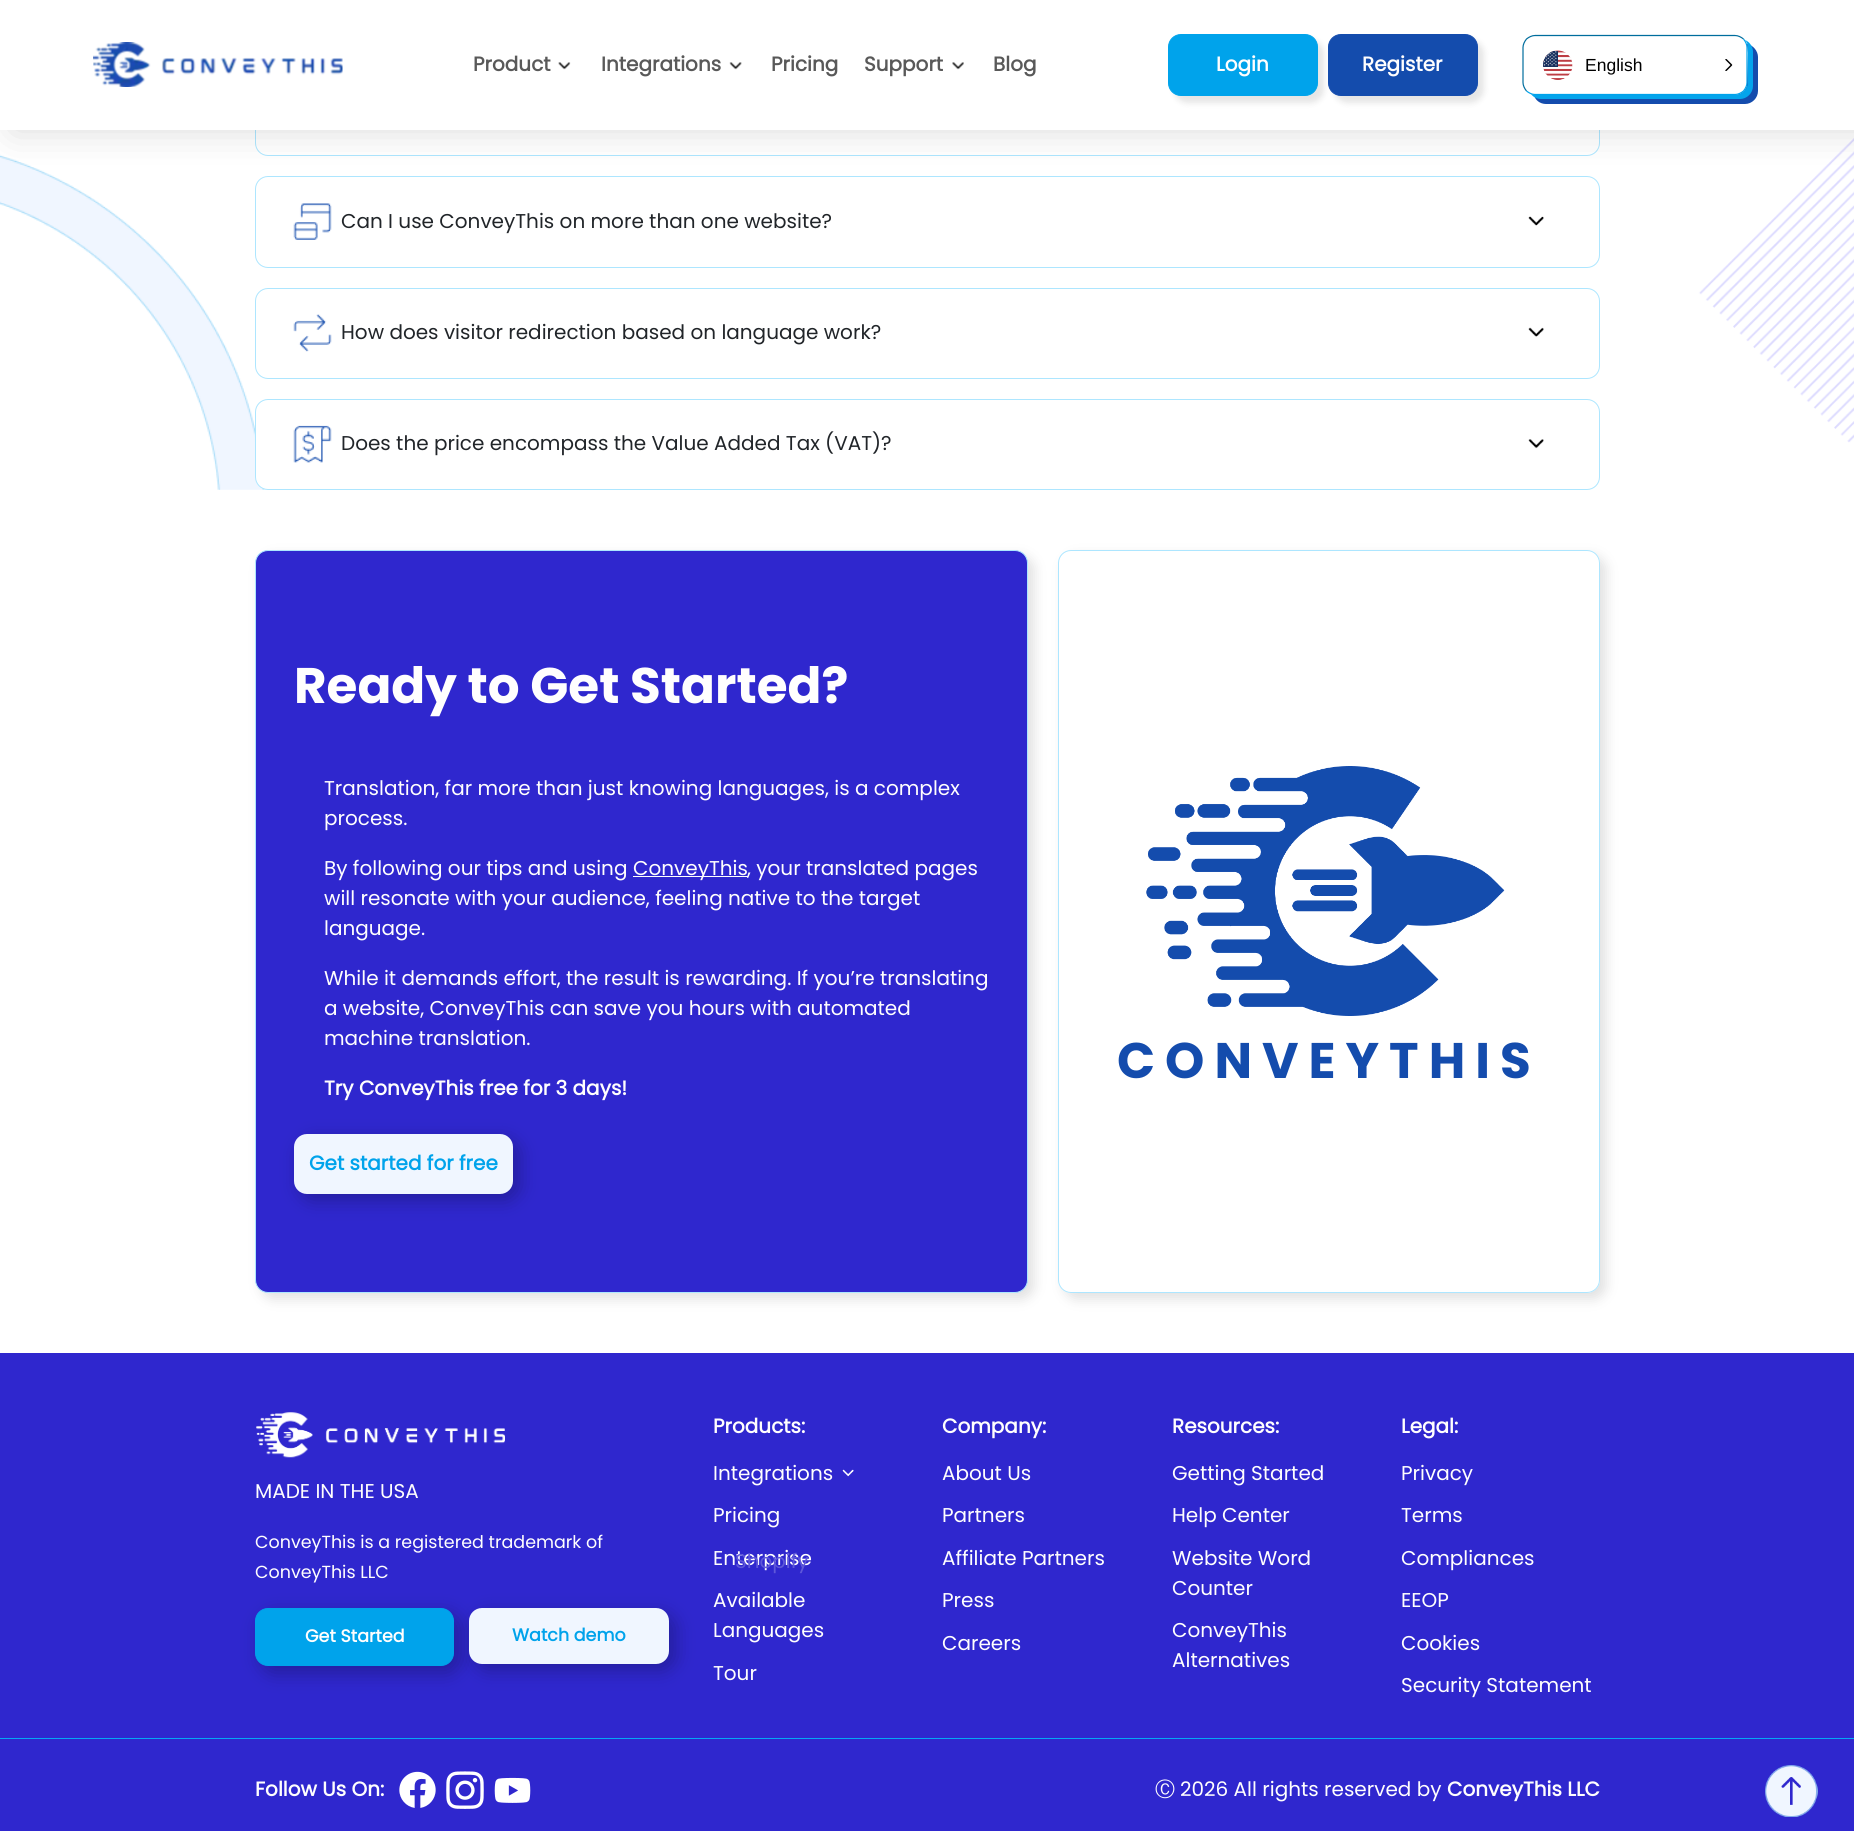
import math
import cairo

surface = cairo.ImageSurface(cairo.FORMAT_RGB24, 1854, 1831)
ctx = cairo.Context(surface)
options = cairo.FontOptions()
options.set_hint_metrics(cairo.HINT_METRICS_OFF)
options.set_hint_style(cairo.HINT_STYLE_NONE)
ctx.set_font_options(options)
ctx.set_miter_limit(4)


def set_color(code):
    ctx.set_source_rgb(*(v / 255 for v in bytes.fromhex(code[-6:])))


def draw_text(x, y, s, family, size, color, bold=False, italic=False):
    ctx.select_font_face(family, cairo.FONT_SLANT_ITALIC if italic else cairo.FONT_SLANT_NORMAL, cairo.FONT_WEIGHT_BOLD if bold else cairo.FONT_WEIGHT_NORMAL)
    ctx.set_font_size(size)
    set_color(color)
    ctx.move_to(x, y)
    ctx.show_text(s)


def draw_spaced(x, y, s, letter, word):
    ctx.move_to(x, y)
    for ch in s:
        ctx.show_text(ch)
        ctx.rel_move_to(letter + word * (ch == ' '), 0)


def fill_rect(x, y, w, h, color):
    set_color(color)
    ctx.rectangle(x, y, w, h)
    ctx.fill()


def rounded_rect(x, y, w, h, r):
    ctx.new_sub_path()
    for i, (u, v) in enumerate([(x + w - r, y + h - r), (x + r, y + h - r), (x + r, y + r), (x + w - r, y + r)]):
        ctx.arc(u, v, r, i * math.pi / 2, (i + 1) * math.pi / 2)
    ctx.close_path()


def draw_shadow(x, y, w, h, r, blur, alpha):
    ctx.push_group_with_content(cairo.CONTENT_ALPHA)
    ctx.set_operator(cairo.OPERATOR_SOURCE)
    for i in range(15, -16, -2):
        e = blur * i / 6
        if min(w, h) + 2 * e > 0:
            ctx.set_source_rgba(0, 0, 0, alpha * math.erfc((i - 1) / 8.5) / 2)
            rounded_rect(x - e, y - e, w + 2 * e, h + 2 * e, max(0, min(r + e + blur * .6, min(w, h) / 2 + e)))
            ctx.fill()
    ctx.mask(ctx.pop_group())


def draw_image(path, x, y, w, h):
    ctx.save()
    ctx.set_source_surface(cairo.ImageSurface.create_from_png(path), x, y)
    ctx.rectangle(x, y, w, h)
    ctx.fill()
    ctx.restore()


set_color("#ffffff")
ctx.paint()
draw_image("assets/img7.png", 0, 138, 1854, 352)
rounded_rect(255.5, 65.5, 1344, 90, 12.5)
set_color("#ade6ff")
ctx.set_line_width(1)
ctx.stroke()
rounded_rect(255.5, 176.5, 1344, 91, 12.5)
ctx.stroke()
set_color("#000000")
draw_shadow(13, 0, 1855, 130, 0, 19, 0.15)
fill_rect(0, 0, 1854, 130, "#ffffff")
draw_image("assets/img1.png", 93, 42, 250, 45)
draw_text(473, 71, "Product", "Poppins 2", 20, "#595959", bold=True)
draw_image("assets/img2.png", 558, 62, 13, 8)
draw_text(601, 71, "Integrations", "Poppins 2", 20, "#595959", bold=True)
draw_image("assets/img3.png", 729, 62, 13, 8)
draw_text(771, 71, "Pricing", "Poppins 2", 20, "#595959", bold=True)
draw_text(864, 71, "Support", "Poppins 2", 20, "#595959", bold=True)
draw_image("assets/img4.png", 952, 62, 12, 8)
draw_text(993, 71, "Blog", "Poppins 2", 20, "#595959", bold=True)
set_color("#000000")
draw_shadow(1174, 40, 150, 63, 13, 3, 0.1)
set_color("#00a3eb")
rounded_rect(1168.5, 34.5, 149, 61, 12.5)
ctx.fill_preserve()
ctx.stroke()
draw_text(1216, 71, "Login", "Poppins 2", 20, "#fffefe", bold=True)
set_color("#000000")
draw_shadow(1334, 40, 150, 63, 13, 3, 0.1)
set_color("#144cad")
rounded_rect(1328.5, 34.5, 149, 61, 12.5)
ctx.fill_preserve()
ctx.stroke()
draw_text(1362, 71, "Register", "Poppins 2", 20, "#fffefe", bold=True)
set_color("#144cad")
ctx.new_path()
ctx.move_to(1534, 95)
ctx.curve_to(1535, 100, 1540, 104, 1546, 104)
ctx.line_to(1745, 104)
ctx.curve_to(1752, 104, 1758, 98, 1758, 91)
ctx.line_to(1758, 57)
ctx.curve_to(1758, 51, 1753, 45, 1747, 44)
ctx.line_to(1748, 53)
ctx.line_to(1747, 85)
ctx.curve_to(1746, 91, 1741, 95, 1735, 95)
ctx.close_path()
ctx.fill()
set_color("#04a4ec")
ctx.new_path()
ctx.move_to(1531, 94)
ctx.curve_to(1533, 97, 1537, 99, 1541, 99)
ctx.line_to(1740, 99)
ctx.curve_to(1747, 99, 1753, 93, 1753, 86)
ctx.line_to(1753, 52)
ctx.curve_to(1753, 47, 1750, 42, 1745, 40)
ctx.curve_to(1747, 42, 1748, 45, 1748, 48)
ctx.line_to(1748, 82)
ctx.curve_to(1748, 89, 1742, 95, 1735, 95)
ctx.line_to(1535, 95)
ctx.close_path()
ctx.fill()
ctx.new_path()
ctx.move_to(1743.5, 39)
ctx.curve_to(1745.5, 41.5, 1747, 44.5, 1747, 47.5)
ctx.line_to(1747, 82.5)
ctx.curve_to(1747, 85.5, 1745.5, 88.5, 1743.5, 91)
ctx.curve_to(1741, 93, 1738, 94.5, 1735, 94.5)
ctx.line_to(1535, 94.5)
ctx.curve_to(1532, 94.5, 1529, 93, 1526.5, 91)
set_color("#00a3eb")
ctx.set_line_width(1.2)
ctx.stroke()
ctx.new_path()
ctx.move_to(1526.5, 91)
ctx.curve_to(1524.5, 88.5, 1523, 85.5, 1523, 82.5)
ctx.line_to(1523, 47.5)
ctx.curve_to(1523, 44.5, 1524.5, 41.5, 1526.5, 39)
ctx.curve_to(1529, 37, 1532, 35.5, 1535, 35.5)
ctx.line_to(1735, 35.5)
ctx.curve_to(1738, 35.5, 1741, 37, 1743.5, 39)
set_color("#006d9d")
ctx.stroke()
draw_image("assets/img5.png", 1543, 50, 30, 30)
draw_text(1585, 71, "English", "Liberation Sans", 17.5, "#000000")
draw_image("assets/img6.png", 1725, 59, 8, 12)
draw_image("assets/img8.png", 293, 203, 39, 37)
draw_text(341, 228, "Can I use ConveyThis on more than one website?", "Poppins", 20, "#212529")
draw_image("assets/img9.png", 1528, 216, 16, 10)
rounded_rect(255.5, 288.5, 1344, 90, 12.5)
set_color("#ade6ff")
ctx.set_line_width(1)
ctx.stroke()
draw_image("assets/img10.png", 293, 314, 39, 38)
draw_text(341, 339, "How does visitor redirection based on language work?", "Poppins", 20, "#212529")
draw_image("assets/img11.png", 1528, 327, 16, 10)
set_color("#ffffff")
rounded_rect(255.5, 399.5, 1344, 90, 12.5)
ctx.fill_preserve()
set_color("#ade6ff")
ctx.stroke()
draw_image("assets/img12.png", 293, 425, 39, 38)
draw_text(341, 450, "Does the price encompass the Value Added Tax (VAT)?", "Poppins", 20, "#212529")
draw_image("assets/img13.png", 1528, 439, 16, 10)
set_color("#e1e1e1")
draw_shadow(261, 556, 773, 743, 13, 6, 1)
set_color("#2f27ce")
rounded_rect(255.5, 550.5, 772, 742, 12.5)
ctx.fill_preserve()
set_color("#ade6ff")
ctx.stroke()
draw_text(294, 703, "Ready to Get Started?", "Poppins", 50, "#fffefe", bold=True)
draw_text(324, 795, "Translation, far more than just knowing languages, is a complex", "Poppins", 20, "#fffefe")
draw_text(324, 825, "process.", "Poppins", 20, "#fffefe")
draw_text(324, 875, "By following our tips and using", "Poppins", 20, "#fffefe")
fill_rect(633, 876, 115, 1, "#ffffff")
draw_text(633, 875, "ConveyThis", "Poppins", 20, "#fffefe")
draw_text(747, 875, ", your translated pages", "Poppins", 20, "#fffefe")
draw_text(324, 905, "will resonate with your audience, feeling native to the target", "Poppins", 20, "#fffefe")
draw_text(324, 935, "language.", "Poppins", 20, "#fffefe")
draw_text(324, 985, "While it demands effort, the result is rewarding. If you’re translating", "Poppins", 20, "#fffefe")
draw_text(324, 1015, "a website, ConveyThis can save you hours with automated", "Poppins", 20, "#fffefe")
draw_text(324, 1045, "machine translation.", "Poppins", 20, "#fffefe")
draw_text(324, 1095, "Try ConveyThis free for 3 days!", "Poppins 2", 20, "#fffefe", bold=True)
set_color("#000000")
draw_shadow(300, 1140, 219, 60, 13, 9.5, 0.25)
set_color("#f0f6ff")
rounded_rect(294, 1134, 219, 60, 13)
ctx.fill()
draw_text(309, 1170, "Get started for free", "Poppins 2", 20, "#00a3eb", bold=True)
ctx.save()
ctx.set_fill_rule(cairo.FILL_RULE_EVEN_ODD)
ctx.new_path()
ctx.move_to(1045, 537)
ctx.line_to(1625, 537)
ctx.line_to(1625, 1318)
ctx.line_to(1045, 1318)
ctx.close_path()
ctx.move_to(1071, 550)
ctx.line_to(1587, 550)
ctx.curve_to(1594, 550, 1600, 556, 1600, 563)
ctx.line_to(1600, 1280)
ctx.curve_to(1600, 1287, 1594, 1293, 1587, 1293)
ctx.line_to(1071, 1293)
ctx.curve_to(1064, 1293, 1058, 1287, 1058, 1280)
ctx.line_to(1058, 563)
ctx.curve_to(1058, 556, 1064, 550, 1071, 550)
ctx.close_path()
ctx.clip()
set_color("#e1e1e1")
draw_shadow(1064, 556, 542, 743, 13, 6, 1)
ctx.restore()
rounded_rect(1058.5, 550.5, 541, 742, 12.5)
set_color("#ade6ff")
ctx.stroke()
draw_image("assets/img14.png", 1146, 766, 359, 250)
ctx.select_font_face("Poppins", cairo.FONT_SLANT_NORMAL, cairo.FONT_WEIGHT_BOLD)
ctx.set_font_size(50)
set_color("#144cad")
draw_spaced(1117, 1078, "CONVEYTHIS", 10, 0)
fill_rect(0, 1353, 1854, 478, "#2f27ce")
draw_image("assets/img15.png", 256, 1412, 249, 46)
draw_text(255, 1498, "MADE IN THE USA", "Poppins", 20, "#fffefe")
draw_text(255, 1548, "ConveyThis is a registered trademark of", "Poppins", 17.5, "#fffefe")
draw_text(255, 1578, "ConveyThis LLC", "Poppins", 17.5, "#fffefe")
set_color("#000000")
draw_shadow(261, 1614, 199, 59, 13, 9.5, 0.25)
set_color("#00a3eb")
rounded_rect(255.5, 1608.5, 198, 57, 12.5)
ctx.fill_preserve()
ctx.stroke()
draw_text(305, 1642, "Get Started", "Poppins 2", 17.5, "#fffefe", bold=True)
set_color("#000000")
draw_shadow(475, 1614, 200, 56, 13, 9.5, 0.25)
set_color("#f0f6ff")
rounded_rect(469, 1608, 200, 56, 13)
ctx.fill()
draw_text(512, 1641, "Watch demo", "Poppins 2", 17.5, "#00a3eb", bold=True)
draw_text(713, 1433, "Products:", "Poppins 2", 20, "#fffefe", bold=True)
draw_text(713, 1480, "Integrations", "Poppins", 20, "#fffefe")
draw_image("assets/img16.png", 842, 1469, 12, 8)
draw_text(713, 1565, "Enterprise", "Poppins", 20, "#fffefe")
draw_text(735, 1568, "Shopify", "Poppins", 20, "#5f58d9")
draw_text(713, 1522, "Pricing", "Poppins", 20, "#fffefe")
draw_text(713, 1607, "Available", "Poppins", 20, "#fffefe")
draw_text(713, 1637, "Languages", "Poppins", 20, "#fffefe")
draw_text(713, 1680, "Tour", "Poppins", 20, "#fffefe")
draw_text(942, 1433, "Company:", "Poppins 2", 20, "#fffefe", bold=True)
draw_text(942, 1480, "About Us", "Poppins", 20, "#fffefe")
draw_text(942, 1522, "Partners", "Poppins", 20, "#fffefe")
draw_text(942, 1565, "Affiliate Partners", "Poppins", 20, "#fffefe")
draw_text(942, 1607, "Press", "Poppins", 20, "#fffefe")
draw_text(942, 1650, "Careers", "Poppins", 20, "#fffefe")
draw_text(1172, 1433, "Resources:", "Poppins 2", 20, "#fffefe", bold=True)
draw_text(1172, 1480, "Getting Started", "Poppins", 20, "#fffefe")
draw_text(1172, 1522, "Help Center", "Poppins", 20, "#fffefe")
draw_text(1172, 1565, "Website Word", "Poppins", 20, "#fffefe")
draw_text(1172, 1595, "Counter", "Poppins", 20, "#fffefe")
draw_text(1172, 1637, "ConveyThis", "Poppins", 20, "#fffefe")
draw_text(1172, 1667, "Alternatives", "Poppins", 20, "#fffefe")
draw_text(1401, 1433, "Legal:", "Poppins 2", 20, "#fffefe", bold=True)
draw_text(1401, 1480, "Privacy", "Poppins", 20, "#fffefe")
draw_text(1401, 1522, "Terms", "Poppins", 20, "#fffefe")
draw_text(1401, 1565, "Compliances", "Poppins", 20, "#fffefe")
draw_text(1401, 1607, "EEOP", "Poppins", 20, "#fffefe")
draw_text(1401, 1650, "Cookies", "Poppins", 20, "#fffefe")
draw_text(1401, 1692, "Security Statement", "Poppins", 20, "#fffefe")
fill_rect(0, 1738, 1854, 1, "#03a9f4")
draw_text(255, 1796, "Follow Us On:", "Poppins 2", 20, "#fffefe", bold=True)
draw_image("assets/img17.png", 399, 1771, 37, 37)
draw_image("assets/img18.png", 446, 1771, 38, 38)
draw_image("assets/img19.png", 494, 1777, 37, 26)
draw_text(1155, 1796, "Ⓒ", "WenQuanYi Zen Hei Medium", 20, "#fffefe")
draw_text(1180, 1796, "2026 All rights reserved by", "Poppins", 20, "#fffefe")
draw_text(1447, 1796, "ConveyThis LLC", "Poppins 2", 20, "#fffefe", bold=True)
draw_image("assets/img20.png", 1765, 1765, 53, 52)
surface.write_to_png("output.png")
